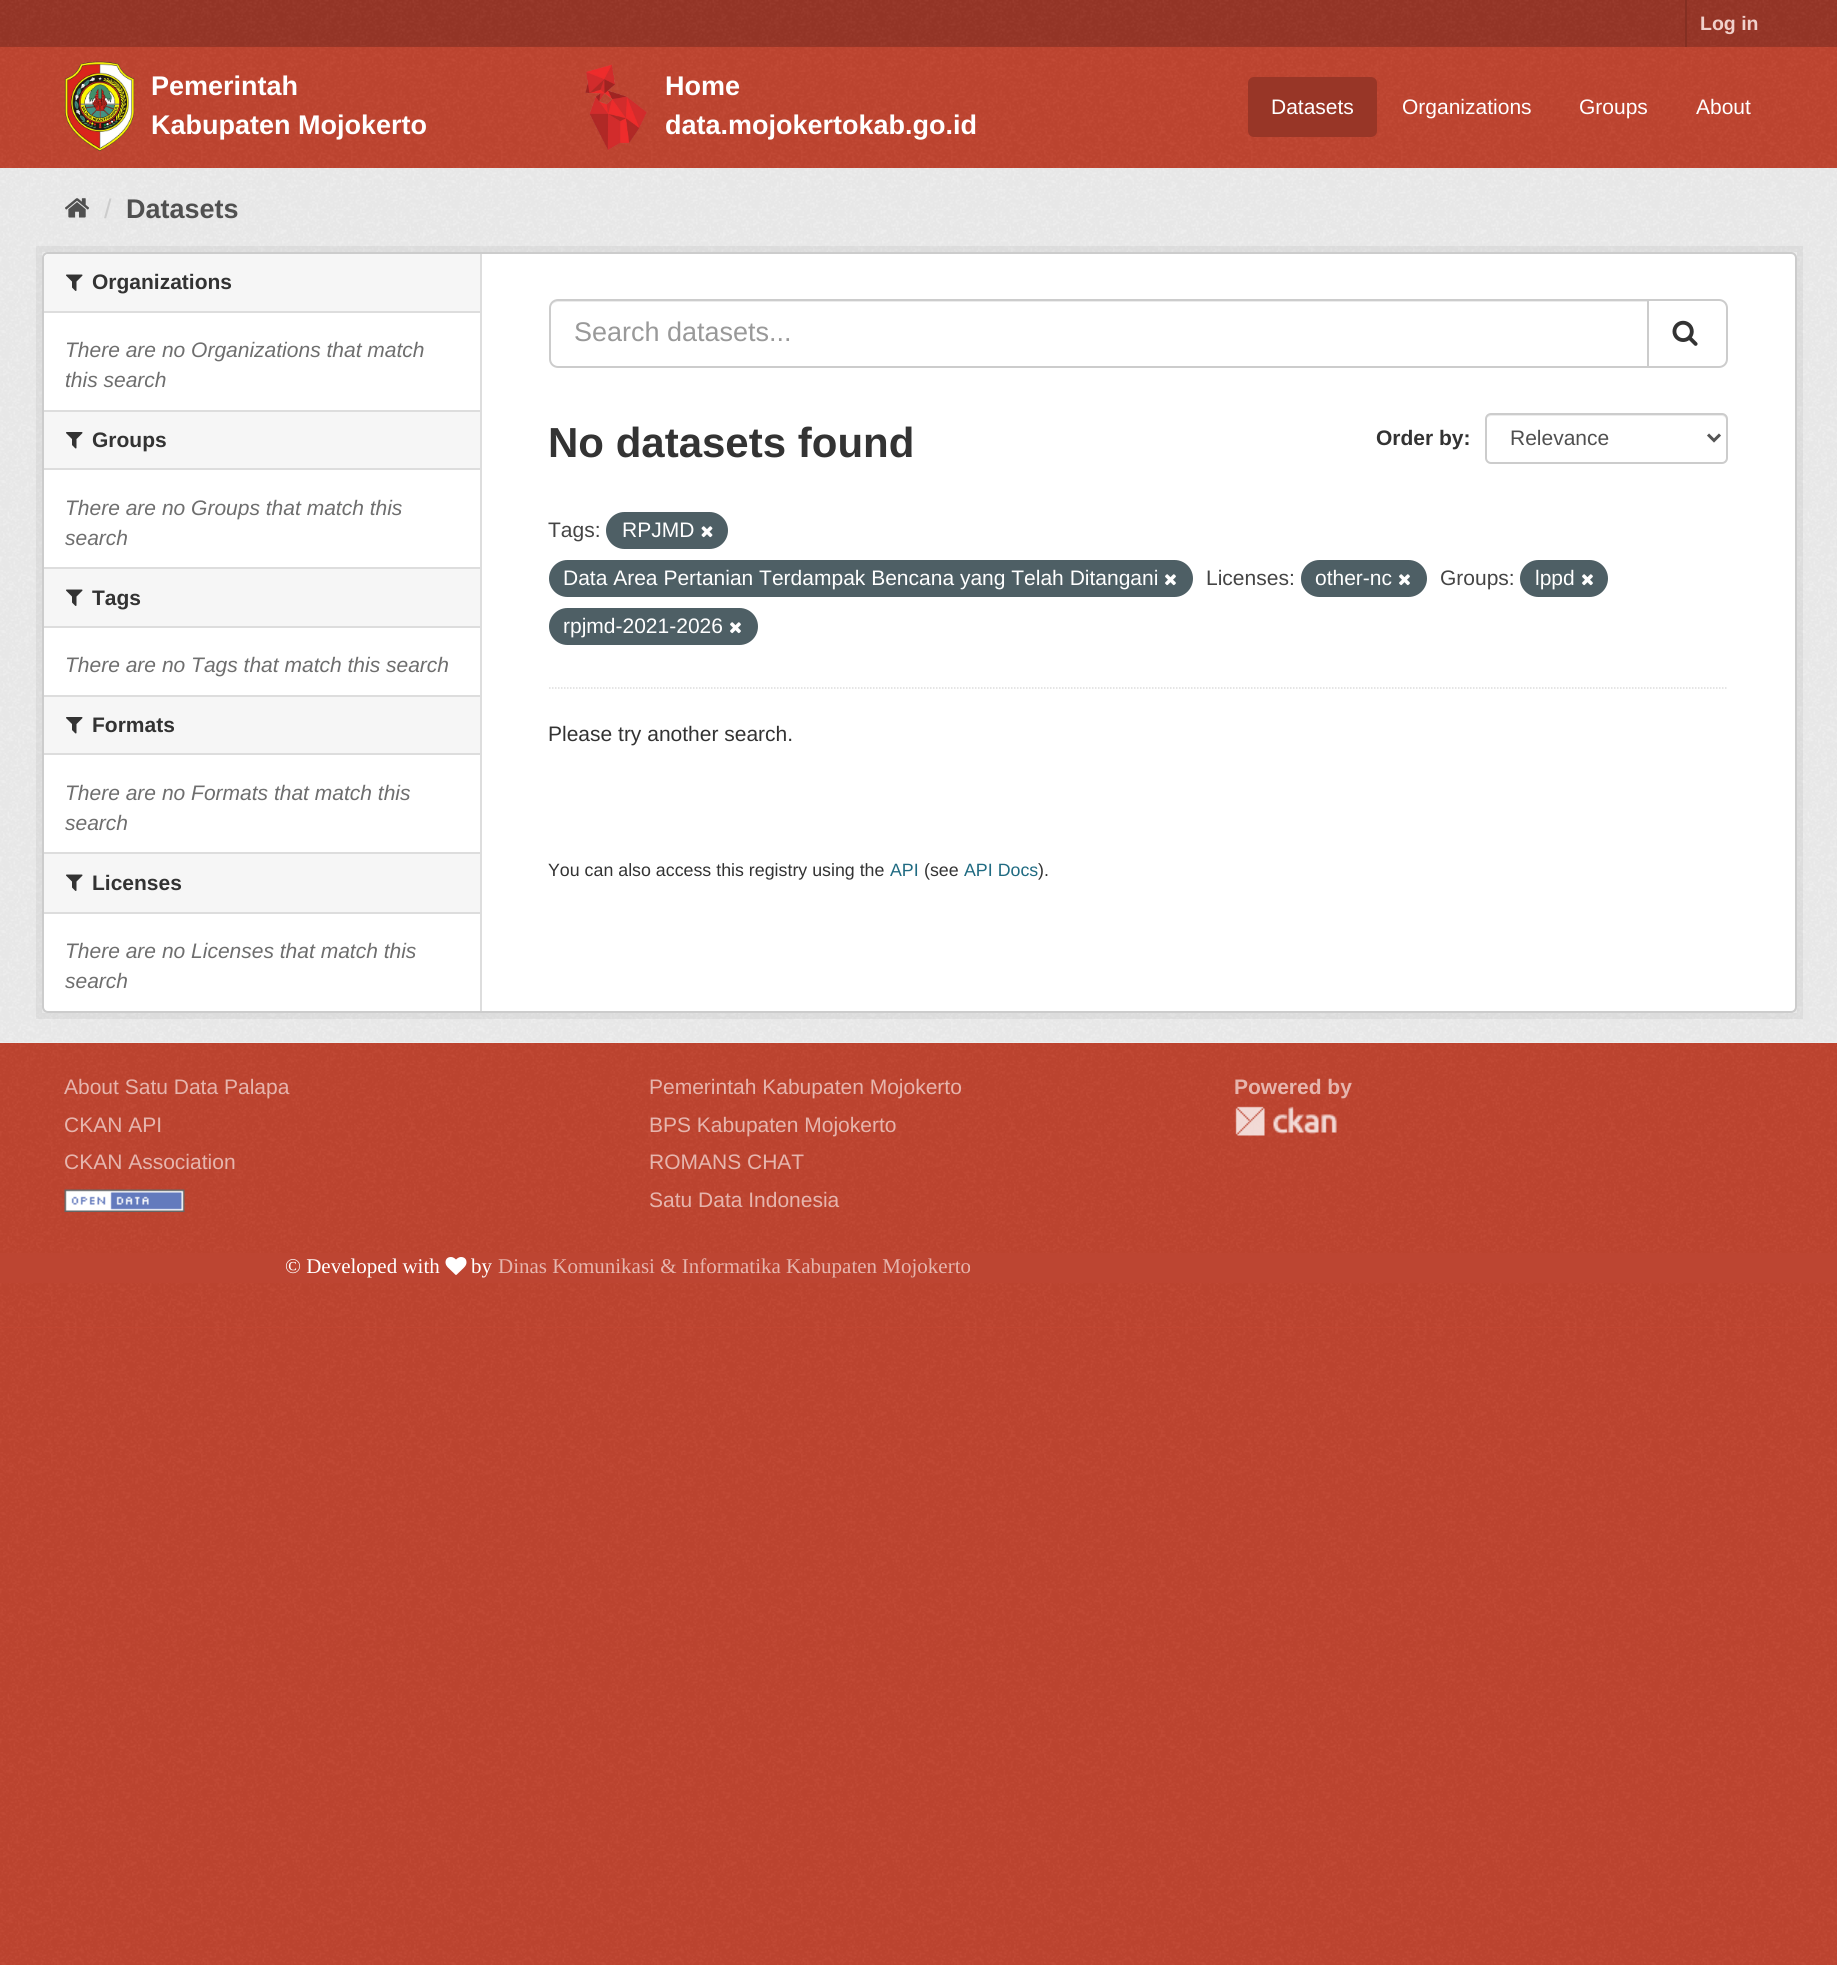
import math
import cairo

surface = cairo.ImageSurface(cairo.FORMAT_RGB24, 1837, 1965)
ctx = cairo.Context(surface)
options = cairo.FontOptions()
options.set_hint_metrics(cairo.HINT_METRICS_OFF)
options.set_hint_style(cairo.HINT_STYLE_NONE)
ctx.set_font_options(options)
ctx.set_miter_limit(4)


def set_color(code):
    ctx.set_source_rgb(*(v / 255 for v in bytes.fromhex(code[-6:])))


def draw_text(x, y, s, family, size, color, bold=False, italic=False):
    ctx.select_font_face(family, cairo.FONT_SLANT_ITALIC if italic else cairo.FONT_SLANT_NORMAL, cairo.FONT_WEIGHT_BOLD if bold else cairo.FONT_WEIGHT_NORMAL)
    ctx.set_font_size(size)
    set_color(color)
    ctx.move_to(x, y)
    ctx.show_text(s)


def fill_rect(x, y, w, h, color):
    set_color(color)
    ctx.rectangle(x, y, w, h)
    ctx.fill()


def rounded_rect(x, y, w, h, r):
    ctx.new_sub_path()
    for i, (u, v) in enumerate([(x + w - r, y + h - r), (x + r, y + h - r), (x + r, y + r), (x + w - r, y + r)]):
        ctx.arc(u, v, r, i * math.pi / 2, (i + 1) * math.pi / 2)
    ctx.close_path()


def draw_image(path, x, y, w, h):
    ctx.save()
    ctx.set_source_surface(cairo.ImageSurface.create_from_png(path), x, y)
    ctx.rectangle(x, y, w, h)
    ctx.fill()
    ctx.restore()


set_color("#c14531")
ctx.paint()
draw_image("assets/img1.png", 0, 1328, 1837, 637)
fill_rect(0, 0, 1837, 47, "#983627")
draw_image("assets/img2.png", 0, 0, 1837, 46)
fill_rect(1685, 0, 2, 47, "#842f22")
draw_text(1700, 30, "Log in", "Liberation Sans", 19.5, "#f0d1cc", bold=True)
draw_image("assets/img3.png", 0, 47, 1837, 121)
draw_image("assets/img4.png", 64, 61, 71, 90)
draw_text(151, 95, "Pemerintah", "Liberation Sans", 27, "#ffffff", bold=True)
draw_text(151, 134, "Kabupaten Mojokerto", "Liberation Sans", 27, "#ffffff", bold=True)
draw_image("assets/img5.png", 585, 64, 62, 86)
draw_text(665, 95, "Home", "Liberation Sans", 27, "#ffffff", bold=True)
draw_text(665, 134, "data.mojokertokab.go.id", "Liberation Sans", 27, "#ffffff", bold=True)
set_color("#983627")
rounded_rect(1248, 77, 129, 60, 6)
ctx.fill()
draw_text(1271, 114, "Datasets", "Liberation Sans", 21, "#ffffff")
draw_text(1402, 114, "Organizations", "Liberation Sans", 21, "#ffffff")
draw_text(1579, 114, "Groups", "Liberation Sans", 21, "#ffffff")
draw_text(1696, 114, "About", "Liberation Sans", 21, "#ffffff")
fill_rect(0, 168, 1837, 875, "#eeeeee")
draw_image("assets/img6.png", 0, 168, 1837, 874)
draw_image("assets/img7.png", 65, 198, 25, 20)
draw_text(104, 218, "/", "Liberation Sans", 27, "#cccccc")
draw_text(126, 218, "Datasets", "Liberation Sans", 27, "#505050", bold=True)
ctx.rectangle(39, 249, 1761, 767)
ctx.set_source_rgba(0, 0, 0, 0.05)
ctx.set_line_width(6)
ctx.stroke()
set_color("#ffffff")
rounded_rect(43, 253, 1753, 759, 5)
ctx.fill_preserve()
set_color("#cccccc")
ctx.set_line_width(2)
ctx.stroke()
set_color("#f6f6f6")
ctx.new_path()
ctx.move_to(49, 254)
ctx.line_to(480, 254)
ctx.line_to(480, 312)
ctx.line_to(44, 312)
ctx.line_to(44, 259)
ctx.curve_to(44, 256, 46, 254, 49, 254)
ctx.close_path()
ctx.fill()
fill_rect(44, 311, 436, 2, "#dddddd")
draw_image("assets/img8.png", 66, 274, 17, 17)
draw_text(92, 289, "Organizations", "Liberation Sans", 21, "#333333", bold=True)
draw_text(65, 357, "There are no Organizations that match", "Liberation Sans", 21, "#6e6e6e", italic=True)
draw_text(65, 387, "this search", "Liberation Sans", 21, "#6e6e6e", italic=True)
fill_rect(44, 412, 436, 56, "#f6f6f6")
fill_rect(44, 410, 436, 2, "#dddddd")
fill_rect(44, 468, 436, 2, "#dddddd")
draw_image("assets/img9.png", 66, 432, 17, 17)
draw_text(92, 447, "Groups", "Liberation Sans", 21, "#333333", bold=True)
draw_text(65, 515, "There are no Groups that match this", "Liberation Sans", 21, "#6e6e6e", italic=True)
draw_text(65, 545, "search", "Liberation Sans", 21, "#6e6e6e", italic=True)
fill_rect(44, 569, 436, 57, "#f6f6f6")
fill_rect(44, 567, 436, 2, "#dddddd")
fill_rect(44, 626, 436, 2, "#dddddd")
draw_image("assets/img8.png", 66, 589, 17, 17)
draw_text(92, 605, "Tags", "Liberation Sans", 21, "#333333", bold=True)
draw_text(65, 672, "There are no Tags that match this search", "Liberation Sans", 21, "#6e6e6e", italic=True)
fill_rect(44, 697, 436, 56, "#f6f6f6")
fill_rect(44, 695, 436, 2, "#dddddd")
fill_rect(44, 753, 436, 2, "#dddddd")
draw_image("assets/img9.png", 66, 717, 17, 17)
draw_text(92, 732, "Formats", "Liberation Sans", 21, "#333333", bold=True)
draw_text(65, 800, "There are no Formats that match this", "Liberation Sans", 21, "#6e6e6e", italic=True)
draw_text(65, 830, "search", "Liberation Sans", 21, "#6e6e6e", italic=True)
fill_rect(44, 854, 436, 58, "#f6f6f6")
fill_rect(44, 852, 436, 2, "#dddddd")
fill_rect(44, 912, 436, 2, "#dddddd")
draw_image("assets/img8.png", 66, 874, 17, 17)
draw_text(92, 890, "Licenses", "Liberation Sans", 21, "#333333", bold=True)
draw_text(65, 958, "There are no Licenses that match this", "Liberation Sans", 21, "#6e6e6e", italic=True)
draw_text(65, 988, "search", "Liberation Sans", 21, "#6e6e6e", italic=True)
fill_rect(480, 254, 2, 757, "#dddddd")
ctx.new_path()
ctx.move_to(549, 688)
ctx.line_to(1728, 688)
ctx.set_line_width(1.5)
ctx.set_dash([1.5, 1.5])
ctx.stroke()
set_color("#ececec")
ctx.new_path()
ctx.move_to(558, 302)
ctx.line_to(1647, 302)
ctx.line_to(1647, 300)
ctx.line_to(559, 300)
ctx.curve_to(556, 300, 553, 302, 552, 305)
ctx.curve_to(553, 303, 556, 302, 558, 302)
ctx.close_path()
ctx.fill()
ctx.new_path()
ctx.move_to(558, 300)
ctx.line_to(1648, 300)
ctx.line_to(1648, 367)
ctx.line_to(558, 367)
ctx.curve_to(553.5, 367, 550, 363.5, 550, 359)
ctx.line_to(550, 308)
ctx.curve_to(550, 303.5, 553.5, 300, 558, 300)
ctx.close_path()
set_color("#cccccc")
ctx.set_line_width(2)
ctx.set_dash([])
ctx.stroke()
draw_text(574, 341, "Search datasets...", "Liberation Sans", 27, "#999999")
set_color("#ffffff")
ctx.new_path()
ctx.move_to(1648, 300)
ctx.line_to(1719, 300)
ctx.curve_to(1723.5, 300, 1727, 303.5, 1727, 308)
ctx.line_to(1727, 359)
ctx.curve_to(1727, 363.5, 1723.5, 367, 1719, 367)
ctx.line_to(1648, 367)
ctx.close_path()
ctx.fill_preserve()
set_color("#cccccc")
ctx.stroke()
draw_image("assets/img10.png", 1672, 320, 26, 26)
draw_text(548, 457, "No datasets found", "Liberation Sans", 42, "#333333", bold=True)
draw_text(1376, 445, "Order by:", "Liberation Sans", 21, "#333333", bold=True)
set_color("#ececec")
ctx.new_path()
ctx.move_to(1491, 416)
ctx.line_to(1722, 416)
ctx.curve_to(1724, 416, 1726, 418, 1726, 420)
ctx.line_to(1726, 460)
ctx.curve_to(1727, 459, 1727, 458, 1727, 457)
ctx.line_to(1727, 419)
ctx.curve_to(1727, 416, 1725, 414, 1722, 414)
ctx.line_to(1492, 414)
ctx.curve_to(1490, 414, 1488, 416, 1487, 418)
ctx.curve_to(1488, 417, 1490, 416, 1491, 416)
ctx.close_path()
ctx.fill()
rounded_rect(1486, 414, 241, 49, 5)
set_color("#cccccc")
ctx.stroke()
ctx.new_path()
ctx.move_to(1708, 434.5)
ctx.line_to(1714, 440.5)
ctx.line_to(1720, 434.5)
set_color("#555555")
ctx.set_line_width(3)
ctx.stroke()
draw_text(1510, 445, "Relevance", "Liberation Sans", 21, "#505050")
draw_text(548, 537, "Tags:", "Liberation Sans", 21, "#444444")
set_color("#4e5f65")
rounded_rect(606, 512, 122, 37, 18.5)
ctx.fill()
draw_text(622, 537, "RPJMD", "Liberation Sans", 21, "#ffffff")
draw_image("assets/img11.png", 701, 526, 12, 12)
set_color("#4e5f65")
rounded_rect(549, 560, 644, 37, 18.5)
ctx.fill()
draw_text(563, 585, "Data Area Pertanian Terdampak Bencana yang Telah Ditangani", "Liberation Sans", 21, "#ffffff")
draw_image("assets/img12.png", 1165, 574, 11, 12)
draw_text(1206, 585, "Licenses:", "Liberation Sans", 21, "#444444")
set_color("#4e5f65")
rounded_rect(1301, 560, 126, 37, 18.5)
ctx.fill()
draw_text(1315, 585, "other-nc", "Liberation Sans", 21, "#ffffff")
draw_image("assets/img12.png", 1399, 574, 11, 12)
draw_text(1440, 585, "Groups:", "Liberation Sans", 21, "#444444")
set_color("#4e5f65")
rounded_rect(1520, 560, 88, 37, 18.5)
ctx.fill()
draw_text(1535, 585, "lppd", "Liberation Sans", 21, "#ffffff")
draw_image("assets/img12.png", 1582, 574, 11, 12)
set_color("#4e5f65")
rounded_rect(549, 608, 209, 37, 18.5)
ctx.fill()
draw_text(563, 633, "rpjmd-2021-2026", "Liberation Sans", 21, "#ffffff")
draw_image("assets/img12.png", 730, 622, 11, 12)
draw_text(548, 741, "Please try another search.", "Liberation Sans", 21, "#333333")
draw_text(548, 876, "You can also access this registry using the", "Liberation Sans", 17.8, "#333333")
draw_text(890, 876, "API", "Liberation Sans", 17.8, "#206b82")
draw_text(924, 876, "(see", "Liberation Sans", 17.8, "#333333")
draw_text(964, 876, "API Docs", "Liberation Sans", 17.8, "#206b82")
draw_text(1038, 876, ").", "Liberation Sans", 17.8, "#333333")
draw_image("assets/img13.png", 0, 1043, 1837, 284)
draw_text(64, 1094, "About Satu Data Palapa", "Liberation Sans", 21, "#e6b5ad")
draw_text(64, 1132, "CKAN API", "Liberation Sans", 21, "#e6b5ad")
draw_text(64, 1169, "CKAN Association", "Liberation Sans", 21, "#e6b5ad")
draw_image("assets/img14.png", 64, 1189, 121, 23)
draw_text(649, 1094, "Pemerintah Kabupaten Mojokerto", "Liberation Sans", 21, "#e6b5ad")
draw_text(649, 1132, "BPS Kabupaten Mojokerto", "Liberation Sans", 21, "#e6b5ad")
draw_text(649, 1169, "ROMANS CHAT", "Liberation Sans", 21, "#e6b5ad")
draw_text(649, 1207, "Satu Data Indonesia", "Liberation Sans", 21, "#e6b5ad")
draw_text(1234, 1094, "Powered by", "Liberation Sans", 21, "#e6b5ad", bold=True)
draw_image("assets/img15.png", 1235, 1106, 102, 30)
fill_rect(0, 1253, 1837, 30, "#bd4532")
draw_text(285, 1273, "© Developed with", "Liberation Serif", 21, "#ffffff")
draw_image("assets/img16.png", 445, 1257, 22, 18)
draw_text(471, 1273, "by", "Liberation Serif", 21, "#ffffff")
draw_text(498, 1273, "Dinas Komunikasi & Informatika Kabupaten Mojokerto", "Liberation Serif", 21, "#e6b5ad")
surface.write_to_png("output.png")
